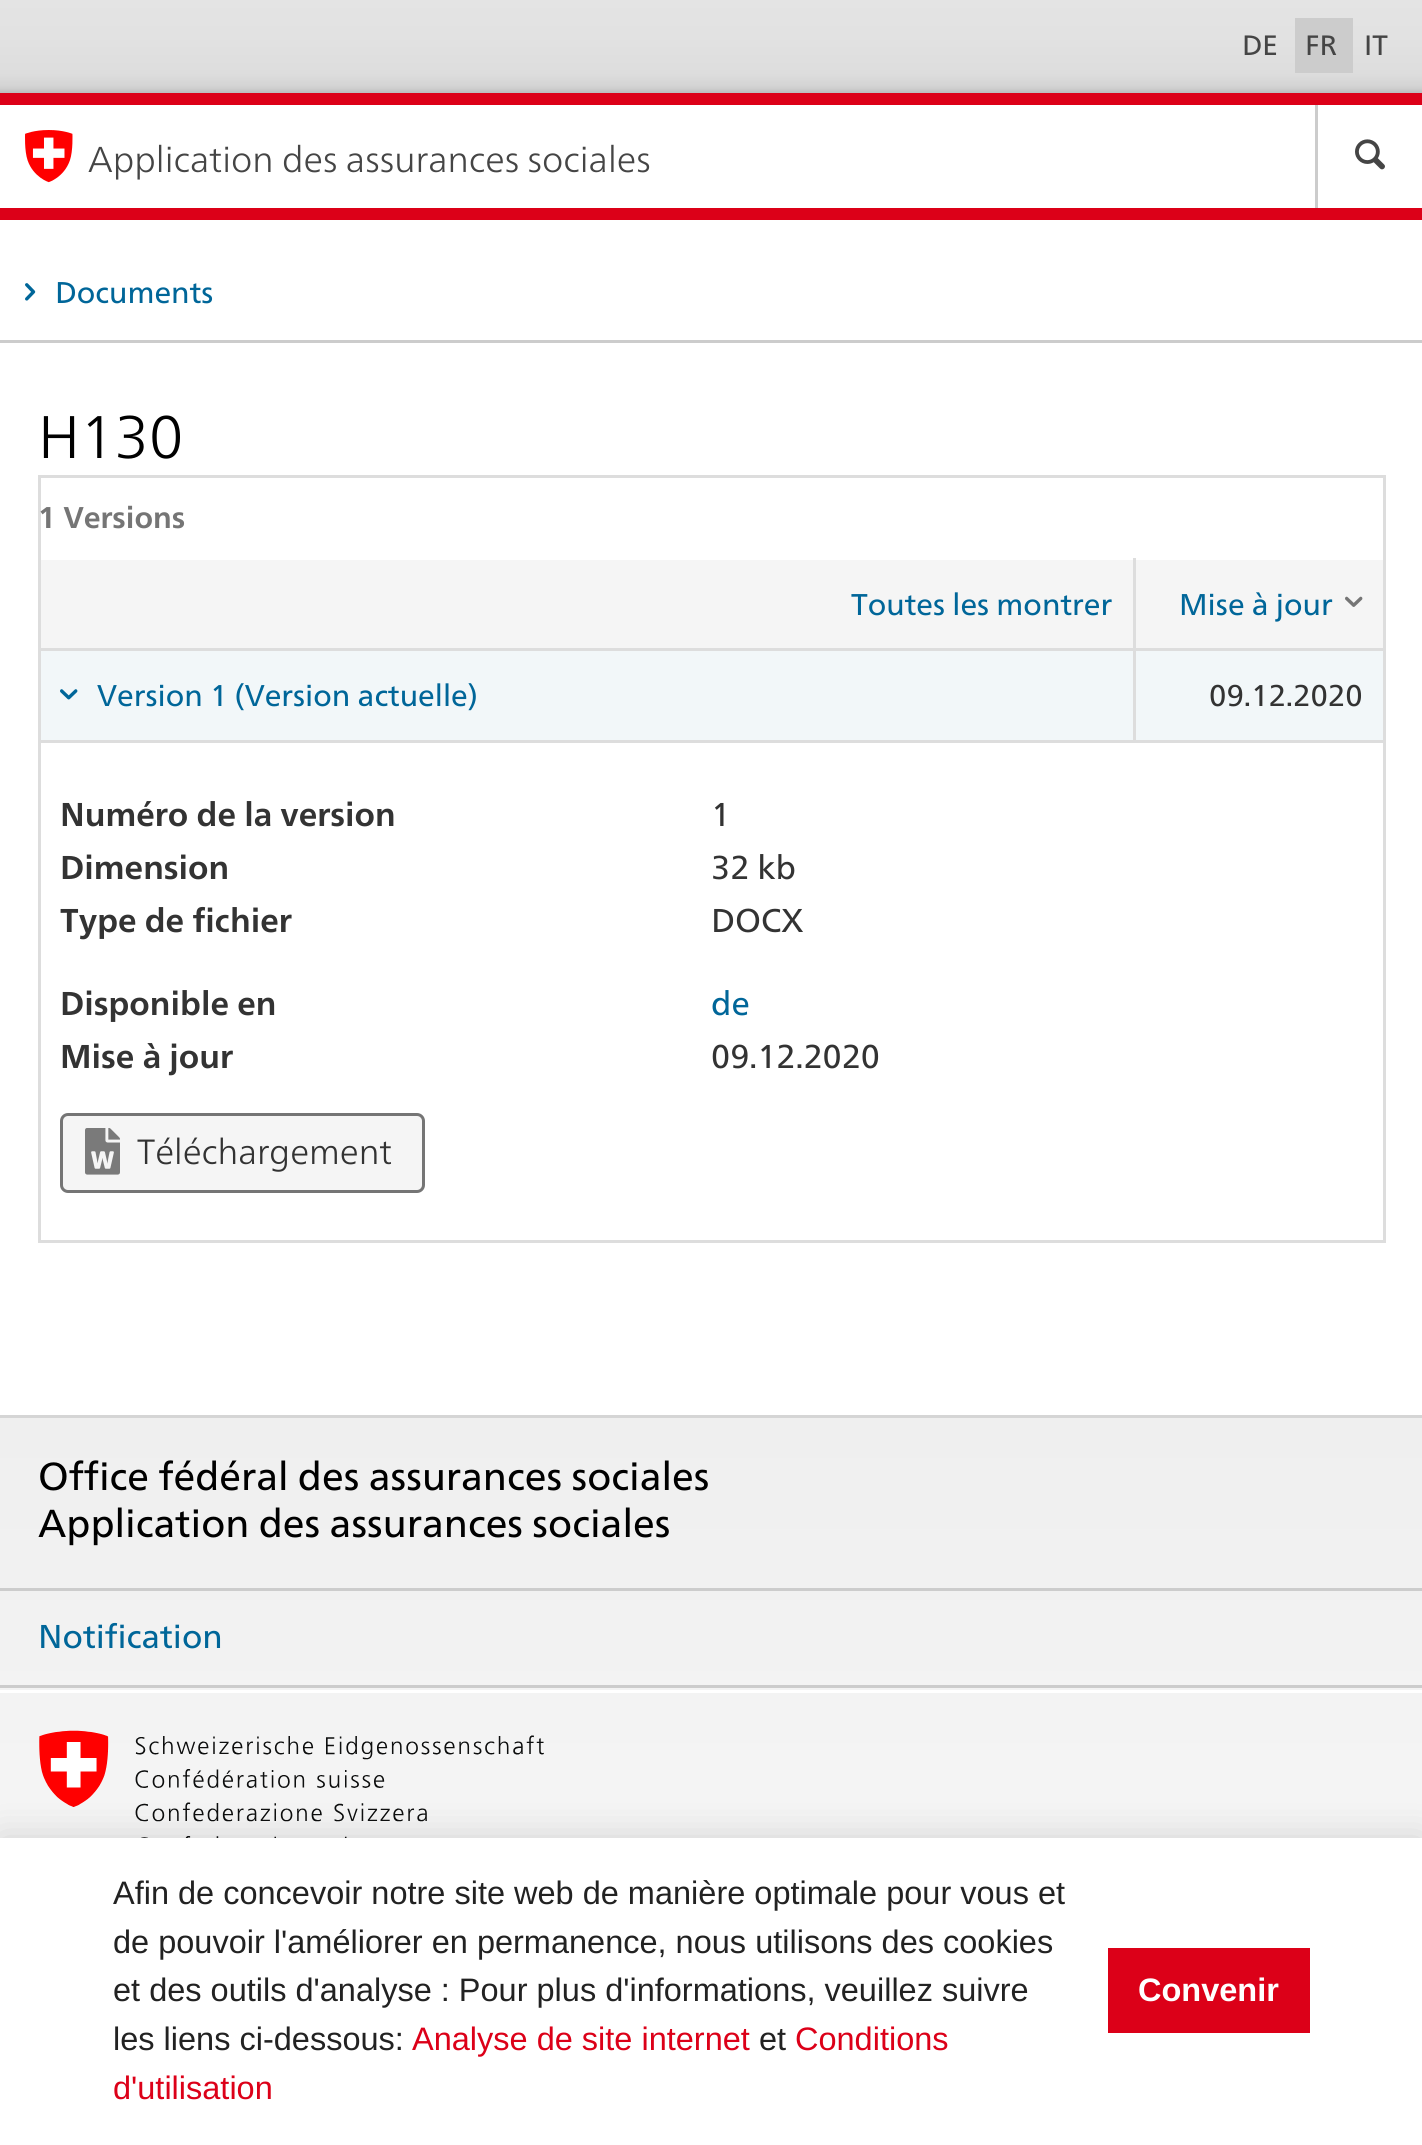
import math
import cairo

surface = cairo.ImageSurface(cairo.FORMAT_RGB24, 1422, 2145)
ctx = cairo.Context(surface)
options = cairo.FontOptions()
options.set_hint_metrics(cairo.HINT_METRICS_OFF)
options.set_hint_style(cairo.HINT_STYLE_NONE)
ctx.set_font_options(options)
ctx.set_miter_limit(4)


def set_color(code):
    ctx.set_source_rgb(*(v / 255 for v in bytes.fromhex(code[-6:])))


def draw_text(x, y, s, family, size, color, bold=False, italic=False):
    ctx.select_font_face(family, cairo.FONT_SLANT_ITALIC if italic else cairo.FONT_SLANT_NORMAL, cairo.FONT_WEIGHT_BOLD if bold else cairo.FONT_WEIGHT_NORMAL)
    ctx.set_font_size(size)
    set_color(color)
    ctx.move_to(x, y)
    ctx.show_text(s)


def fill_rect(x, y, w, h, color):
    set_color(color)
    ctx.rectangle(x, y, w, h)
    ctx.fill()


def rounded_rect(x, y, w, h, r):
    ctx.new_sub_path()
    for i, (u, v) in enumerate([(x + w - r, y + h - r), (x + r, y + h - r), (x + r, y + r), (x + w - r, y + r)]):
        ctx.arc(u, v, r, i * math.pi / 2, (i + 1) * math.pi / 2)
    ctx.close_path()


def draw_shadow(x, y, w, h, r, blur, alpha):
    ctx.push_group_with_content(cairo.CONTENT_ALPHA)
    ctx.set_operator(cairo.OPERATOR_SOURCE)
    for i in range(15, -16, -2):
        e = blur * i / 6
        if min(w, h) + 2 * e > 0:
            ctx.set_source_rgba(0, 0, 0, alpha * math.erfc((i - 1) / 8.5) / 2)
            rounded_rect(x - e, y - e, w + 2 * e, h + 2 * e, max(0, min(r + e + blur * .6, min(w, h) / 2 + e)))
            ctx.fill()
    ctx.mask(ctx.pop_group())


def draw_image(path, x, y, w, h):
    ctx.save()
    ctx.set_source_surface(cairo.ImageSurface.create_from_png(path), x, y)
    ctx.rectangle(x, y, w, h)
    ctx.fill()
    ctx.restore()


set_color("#ffffff")
ctx.paint()
gradient = cairo.LinearGradient(711, 0, 711, 93)
gradient.add_color_stop_rgba(0, 0.894, 0.894, 0.894, 1)
gradient.add_color_stop_rgba(0.39, 0.886, 0.886, 0.886, 1)
gradient.add_color_stop_rgba(0.79, 0.867, 0.867, 0.867, 1)
gradient.add_color_stop_rgba(0.91, 0.835, 0.835, 0.835, 1)
gradient.add_color_stop_rgba(0.95, 0.812, 0.812, 0.812, 1)
gradient.add_color_stop_rgba(0.99, 0.745, 0.745, 0.745, 1)
ctx.set_source(gradient)
ctx.rectangle(0, 0, 1422, 93)
ctx.fill()
draw_text(1242, 55, "DE", "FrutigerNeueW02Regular", 28, "#454545")
fill_rect(1295, 18, 58, 55, "#cccccc")
draw_text(1305, 55, "FR", "FrutigerNeueW02Regular", 28, "#454545")
draw_text(1364, 55, "IT", "FrutigerNeueW02Regular", 28, "#454545")
fill_rect(0, 93, 1422, 12, "#dc0018")
draw_image("assets/img1.png", 25, 130, 48, 53)
draw_text(88, 172, "Application des assurances sociales", "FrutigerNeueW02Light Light", 36, "#454545")
fill_rect(1315, 105, 3, 103, "#cccccc")
draw_image("assets/img2.png", 1355, 139, 30, 31)
fill_rect(0, 208, 1422, 12, "#dc0018")
fill_rect(0, 340, 1422, 3, "#cccccc")
draw_image("assets/img3.png", 25, 283, 11, 18)
draw_text(55, 303, "Documents", "FrutigerNeueW02Regular", 30, "#006699")
draw_text(38, 458, "H130", "FrutigerNeueW02Light Light", 60, "#000000")
fill_rect(38, 475, 1347, 3, "#dddddd")
fill_rect(1383, 475, 3, 768, "#dddddd")
fill_rect(38, 1240, 1347, 3, "#dddddd")
fill_rect(38, 475, 3, 768, "#dddddd")
draw_text(38, 528, "1 Versions", "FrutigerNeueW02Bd", 30, "#757575", bold=True)
fill_rect(41, 560, 1092, 88, "#f5f5f5")
draw_text(851, 615, "Toutes les montrer", "FrutigerNeueW02Regular", 30, "#006699")
fill_rect(1136, 560, 247, 88, "#f5f5f5")
fill_rect(1133, 648, 252, 3, "#dddddd")
fill_rect(38, 740, 1347, 3, "#dddddd")
fill_rect(1133, 648, 3, 95, "#dddddd")
fill_rect(38, 648, 1097, 3, "#dddddd")
fill_rect(1133, 558, 3, 92, "#dddddd")
draw_text(1179, 615, "Mise à jour", "FrutigerNeueW02Regular", 30, "#006699")
draw_image("assets/img4.png", 1345, 596, 18, 11)
fill_rect(41, 651, 1092, 89, "#f2f7f9")
draw_image("assets/img5.png", 60, 689, 18, 11)
draw_text(97, 706, "Version 1 (Version actuelle)", "FrutigerNeueW02Regular", 30, "#006699")
fill_rect(1136, 651, 247, 89, "#f2f7f9")
draw_text(1209, 706, "09.12.2020", "FrutigerNeueW02Regular", 30, "#333333")
draw_text(60, 826, "Numéro de la version", "FrutigerNeueW02Bd", 33, "#333333", bold=True)
draw_text(711, 826, "1", "FrutigerNeueW02Regular", 33, "#333333")
draw_text(60, 879, "Dimension", "FrutigerNeueW02Bd", 33, "#333333", bold=True)
draw_text(711, 879, "32 kb", "FrutigerNeueW02Regular", 33, "#333333")
draw_text(60, 932, "Type de fichier", "FrutigerNeueW02Bd", 33, "#333333", bold=True)
draw_text(711, 932, "DOCX", "FrutigerNeueW02Regular", 33, "#333333")
draw_text(60, 1015, "Disponible en", "FrutigerNeueW02Bd", 33, "#333333", bold=True)
draw_text(711, 1015, "de", "FrutigerNeueW02Regular", 33, "#006699")
draw_text(60, 1068, "Mise à jour", "FrutigerNeueW02Bd", 33, "#333333", bold=True)
draw_text(711, 1068, "09.12.2020", "FrutigerNeueW02Regular", 33, "#333333")
set_color("#f5f5f5")
rounded_rect(61.5, 1114.5, 362, 77, 6.5)
ctx.fill_preserve()
set_color("#757575")
ctx.set_line_width(3)
ctx.stroke()
draw_image("assets/img6.png", 85, 1128, 35, 47)
draw_text(137, 1164, "Téléchargement", "FrutigerNeueW02Light Light", 35, "#333333")
gradient = cairo.LinearGradient(711, 1418, 711, 1998)
gradient.add_color_stop_rgba(0, 0.937, 0.937, 0.937, 1)
gradient.add_color_stop_rgba(1, 0.969, 0.969, 0.969, 1)
ctx.set_source(gradient)
ctx.rectangle(0, 1418, 1422, 420)
ctx.fill()
fill_rect(0, 1415, 1422, 3, "#d5d5d5")
draw_text(38, 1490, "Office fédéral des assurances sociales", "FrutigerNeueW02Regular", 39, "#000000")
draw_text(38, 1537, "Application des assurances sociales", "FrutigerNeueW02Regular", 39, "#000000")
fill_rect(0, 1685, 1422, 3, "#cccccc")
fill_rect(0, 1588, 1422, 3, "#cccccc")
draw_text(38, 1648, "Notification", "FrutigerNeueW02Regular", 33, "#006699")
fill_rect(0, 1690, 1422, 3, "#ffffff")
draw_image("assets/img7.png", 39, 1730, 505, 108)
set_color("#000000")
draw_shadow(0, 1838, 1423, 307, 0, 19, 0.15)
fill_rect(0, 1838, 1422, 307, "#ffffff")
draw_text(113, 1904, "Afin de concevoir notre site web de manière optimale pour vous et", "Liberation Sans", 32.5, "#222222")
draw_text(113, 1953, "de pouvoir l'améliorer en permanence, nous utilisons des cookies", "Liberation Sans", 32.5, "#222222")
draw_text(113, 2001, "et des outils d'analyse : Pour plus d'informations, veuillez suivre", "Liberation Sans", 32.5, "#222222")
draw_text(113, 2050, "les liens ci-dessous:", "Liberation Sans", 32.5, "#222222")
draw_text(412, 2050, "Analyse de site internet", "Liberation Sans", 32.5, "#dc0018")
draw_text(759, 2050, "et", "Liberation Sans", 32.5, "#222222")
draw_text(795, 2050, "Conditions", "Liberation Sans", 32.5, "#dc0018")
draw_text(113, 2099, "d'utilisation", "Liberation Sans", 32.5, "#dc0018")
fill_rect(1108, 1948, 202, 85, "#dc0018")
draw_text(1138, 2001, "Convenir", "Liberation Sans", 32.5, "#ffffff", bold=True)
surface.write_to_png("output.png")
